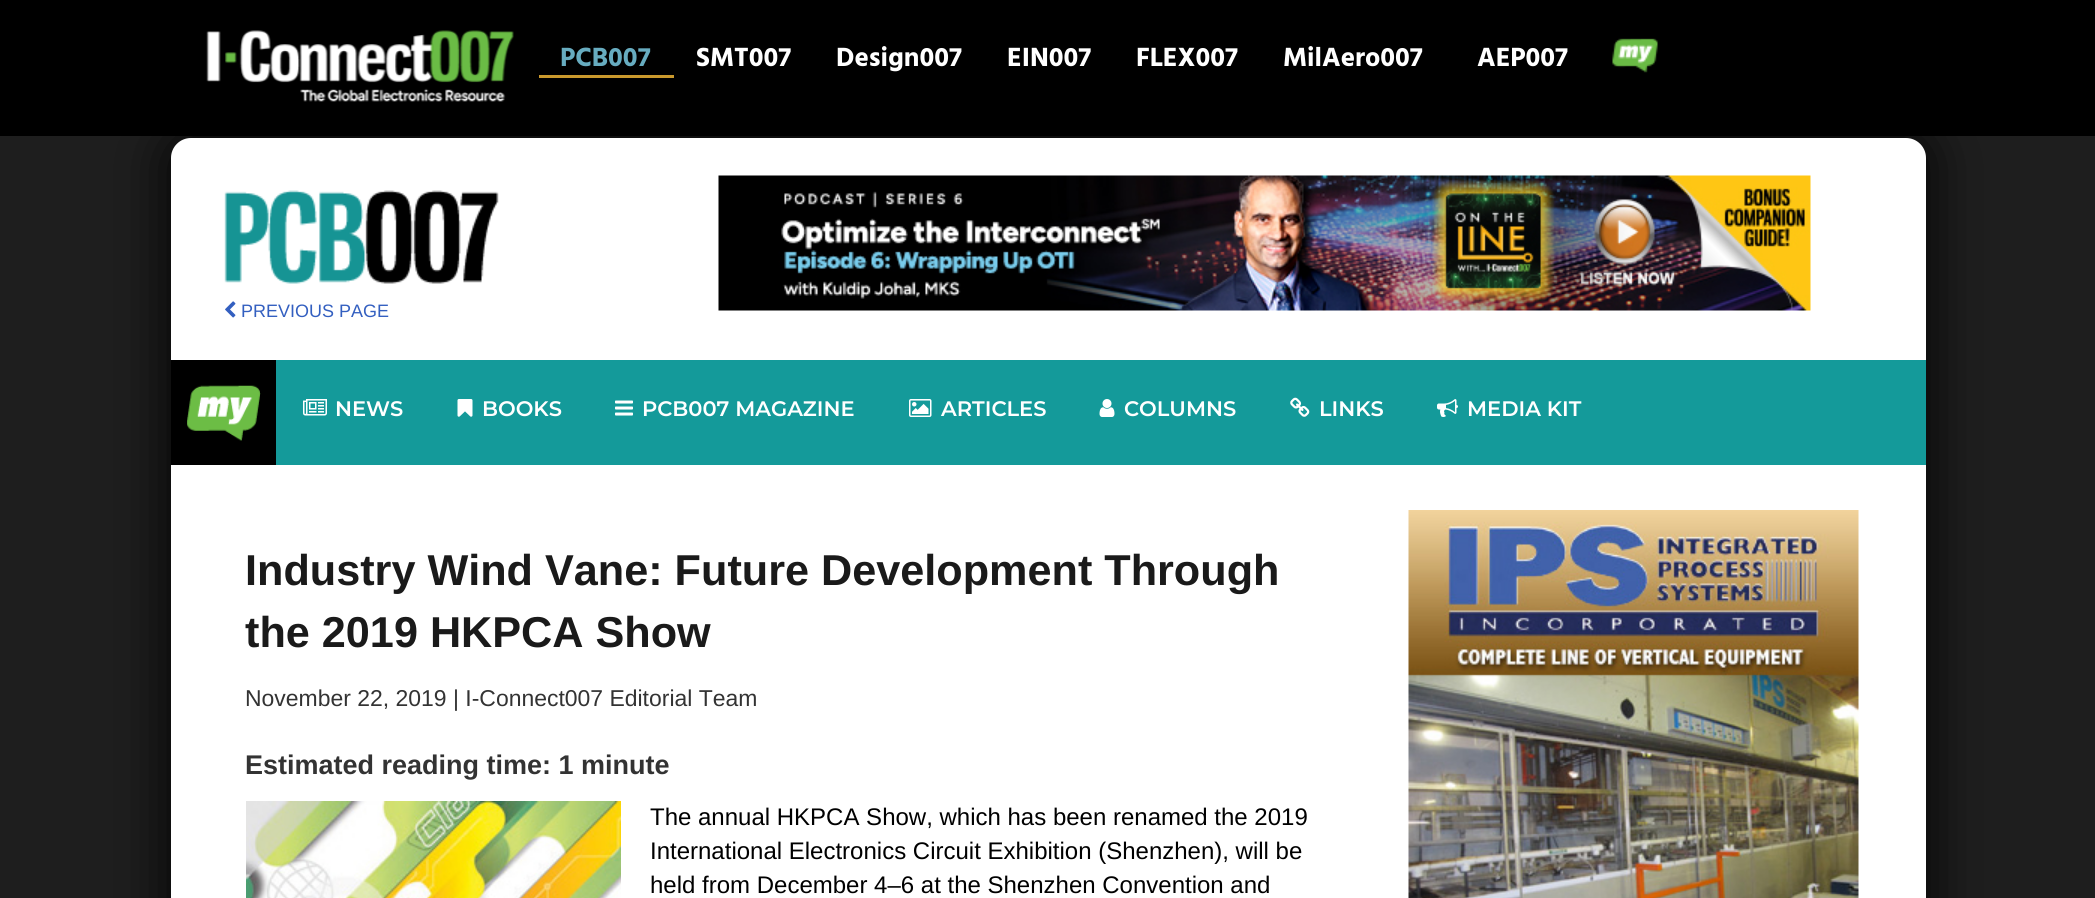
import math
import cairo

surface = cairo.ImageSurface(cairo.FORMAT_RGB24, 2095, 898)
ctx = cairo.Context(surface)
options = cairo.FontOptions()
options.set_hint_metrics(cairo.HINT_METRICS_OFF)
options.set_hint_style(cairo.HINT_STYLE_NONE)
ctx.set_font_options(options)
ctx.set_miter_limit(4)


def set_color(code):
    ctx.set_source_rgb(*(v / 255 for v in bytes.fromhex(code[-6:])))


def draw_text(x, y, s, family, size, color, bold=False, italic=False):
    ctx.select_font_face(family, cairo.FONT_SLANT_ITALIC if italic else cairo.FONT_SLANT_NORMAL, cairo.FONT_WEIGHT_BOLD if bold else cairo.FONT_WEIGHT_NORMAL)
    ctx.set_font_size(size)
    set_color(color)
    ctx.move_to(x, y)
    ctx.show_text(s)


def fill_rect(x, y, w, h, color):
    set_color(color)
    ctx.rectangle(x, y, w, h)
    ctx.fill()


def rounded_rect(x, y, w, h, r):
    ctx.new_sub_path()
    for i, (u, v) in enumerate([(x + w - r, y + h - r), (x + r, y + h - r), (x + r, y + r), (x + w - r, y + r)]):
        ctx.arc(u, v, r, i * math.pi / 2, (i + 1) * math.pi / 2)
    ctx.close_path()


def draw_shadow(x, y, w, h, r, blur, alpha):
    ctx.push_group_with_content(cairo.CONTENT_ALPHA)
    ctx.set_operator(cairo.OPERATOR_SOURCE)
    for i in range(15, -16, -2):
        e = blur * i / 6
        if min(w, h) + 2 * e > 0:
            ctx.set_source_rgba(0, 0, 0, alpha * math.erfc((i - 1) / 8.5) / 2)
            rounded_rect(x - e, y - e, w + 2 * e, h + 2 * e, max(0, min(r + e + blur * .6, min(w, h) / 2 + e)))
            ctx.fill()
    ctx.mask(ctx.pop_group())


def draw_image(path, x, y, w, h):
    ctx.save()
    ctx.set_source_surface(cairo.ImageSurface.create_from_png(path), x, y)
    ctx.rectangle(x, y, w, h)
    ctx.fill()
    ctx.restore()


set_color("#1e1e1e")
ctx.paint()
set_color("#000000")
draw_shadow(171, 138, 1755, 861, 20, 27, 1)
fill_rect(0, 0, 2095, 136, "#000000")
draw_image("assets/img1.png", 206, 30, 308, 72)
fill_rect(539, 75, 135, 3, "#ca992d")
draw_text(560, 66, "PCB007", "Hind", 27, "#67acc0", bold=True)
draw_text(696, 66, "SMT007", "Hind", 27, "#ffffff", bold=True)
draw_text(836, 66, "Design007", "Hind", 27, "#ffffff", bold=True)
draw_text(1007, 66, "EIN007", "Hind", 27, "#ffffff", bold=True)
draw_text(1136, 66, "FLEX007", "Hind", 27, "#ffffff", bold=True)
draw_text(1283, 66, "MilAero007", "Hind", 27, "#ffffff", bold=True)
draw_text(1477, 66, "AEP007", "Hind", 27, "#ffffff", bold=True)
draw_image("assets/img2.png", 1612, 38, 46, 35)
rounded_rect(171, 138, 1755, 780, 20)
ctx.fill()
draw_image("assets/img3.png", 224, 190, 275, 94)
draw_image("assets/img4.png", 225, 301, 11, 17)
draw_text(241, 317, "PREVIOUS PAGE", "Liberation Sans", 18, "#335fc0")
draw_image("assets/img5.png", 718, 175, 1093, 136)
fill_rect(276, 360, 1650, 105, "#149a9a")
fill_rect(171, 360, 105, 105, "#000000")
draw_image("assets/img6.png", 187, 385, 74, 56)
draw_image("assets/img7.png", 303, 399, 24, 17)
draw_text(335, 416, "NEWS", "Montserrat SemiBold", 21, "#ffffff")
draw_image("assets/img8.png", 457, 399, 16, 18)
draw_text(482, 416, "BOOKS", "Montserrat SemiBold", 21, "#ffffff")
draw_image("assets/img9.png", 615, 400, 18, 16)
draw_text(642, 416, "PCB007 MAGAZINE", "Montserrat SemiBold", 21, "#ffffff")
draw_image("assets/img10.png", 909, 399, 23, 18)
draw_text(941, 416, "ARTICLES", "Montserrat SemiBold", 21, "#ffffff")
draw_image("assets/img11.png", 1099, 399, 16, 18)
draw_text(1124, 416, "COLUMNS", "Montserrat SemiBold", 21, "#ffffff")
draw_image("assets/img12.png", 1290, 397, 20, 20)
draw_text(1319, 416, "LINKS", "Montserrat SemiBold", 21, "#ffffff")
draw_image("assets/img13.png", 1437, 399, 21, 18)
draw_text(1467, 416, "MEDIA KIT", "Montserrat SemiBold", 21, "#ffffff")
draw_text(245, 585, "Industry Wind Vane: Future Development Through", "Liberation Sans", 43.2, "#1a1a1a", bold=True)
draw_text(245, 647, "the 2019 HKPCA Show", "Liberation Sans", 43.2, "#1a1a1a", bold=True)
draw_text(245, 706, "November 22, 2019 | I-Connect007 Editorial Team", "Liberation Sans", 22.95, "#333333")
draw_text(245, 774, "Estimated reading time: 1 minute", "Liberation Sans", 27, "#333333", bold=True)
draw_image("assets/img14.png", 246, 801, 375, 97)
draw_text(650, 825, "The annual HKPCA Show, which has been renamed the 2019", "Liberation Sans", 24, "#000000")
draw_text(650, 859, "International Electronics Circuit Exhibition (Shenzhen), will be", "Liberation Sans", 24, "#000000")
draw_text(650, 893, "held from December 4–6 at the Shenzhen Convention and", "Liberation Sans", 24, "#000000")
draw_image("assets/img15.png", 1408, 510, 451, 388)
surface.write_to_png("output.png")
